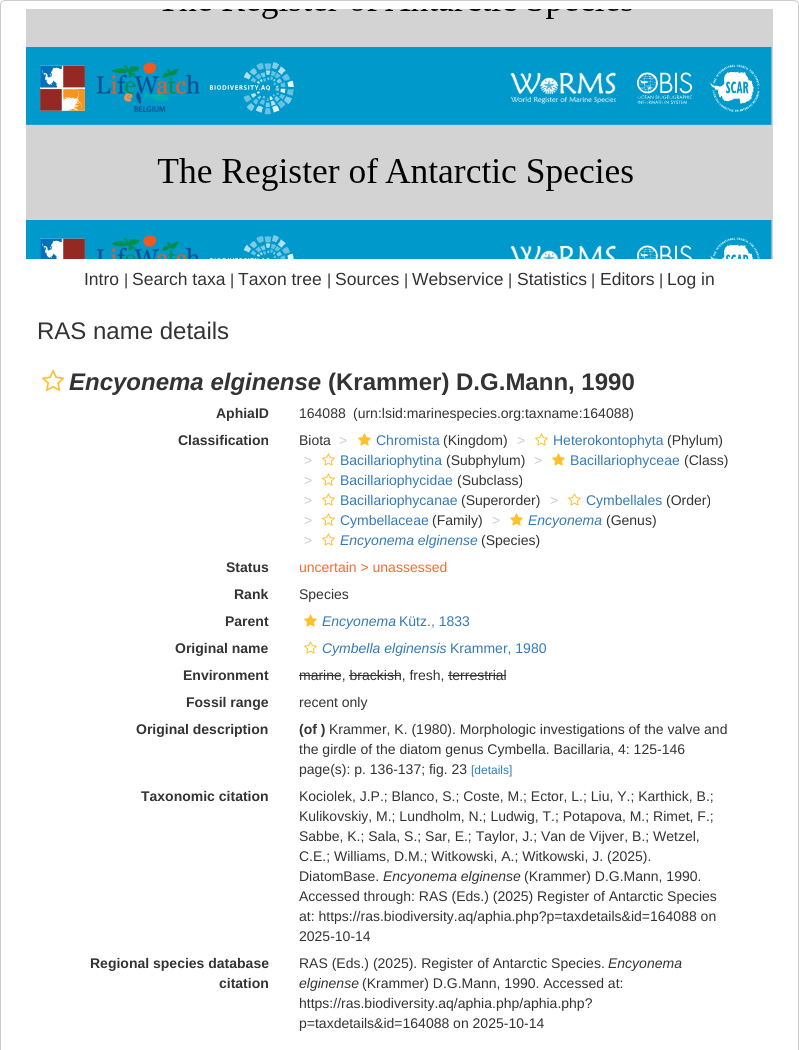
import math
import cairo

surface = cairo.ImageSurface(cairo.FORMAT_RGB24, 799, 1050)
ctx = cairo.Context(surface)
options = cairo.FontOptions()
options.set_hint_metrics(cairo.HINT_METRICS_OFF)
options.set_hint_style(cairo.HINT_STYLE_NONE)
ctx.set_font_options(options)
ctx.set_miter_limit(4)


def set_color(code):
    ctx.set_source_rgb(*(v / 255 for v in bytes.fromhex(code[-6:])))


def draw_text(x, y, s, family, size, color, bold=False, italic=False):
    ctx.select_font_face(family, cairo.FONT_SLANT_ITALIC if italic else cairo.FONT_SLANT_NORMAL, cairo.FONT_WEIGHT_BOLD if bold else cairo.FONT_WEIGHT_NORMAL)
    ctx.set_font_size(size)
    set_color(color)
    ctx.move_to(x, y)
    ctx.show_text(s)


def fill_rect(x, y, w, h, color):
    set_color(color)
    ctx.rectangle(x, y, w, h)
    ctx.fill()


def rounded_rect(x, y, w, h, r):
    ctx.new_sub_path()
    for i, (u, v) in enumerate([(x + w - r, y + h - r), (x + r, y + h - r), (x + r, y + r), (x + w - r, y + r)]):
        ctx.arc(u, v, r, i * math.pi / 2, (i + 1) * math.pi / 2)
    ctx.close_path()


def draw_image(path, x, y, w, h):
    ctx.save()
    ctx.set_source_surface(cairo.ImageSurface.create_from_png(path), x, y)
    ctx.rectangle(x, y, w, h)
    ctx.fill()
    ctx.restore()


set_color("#ffffff")
ctx.paint()
rounded_rect(0.5, 0.5, 798, 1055, 4.5)
set_color("#cccccc")
ctx.set_line_width(1)
ctx.stroke()
fill_rect(26, 9, 747, 250, "#d3d3d3")
draw_image("assets/img1.png", 26, 9, 746, 250)
draw_text(84, 285, "Intro", "Liberation Sans", 17.5, "#333333")
draw_text(124, 285, "|", "Liberation Sans", 16, "#333333")
draw_text(132, 285, "Search taxa", "Liberation Sans", 17.5, "#333333")
draw_text(230, 285, "|", "Liberation Sans", 16, "#333333")
draw_text(238, 285, "Taxon tree", "Liberation Sans", 17.5, "#333333")
draw_text(327, 285, "|", "Liberation Sans", 16, "#333333")
draw_text(335, 285, "Sources", "Liberation Sans", 17.5, "#333333")
draw_text(404, 285, "|", "Liberation Sans", 16, "#333333")
draw_text(412, 285, "Webservice", "Liberation Sans", 17.5, "#333333")
draw_text(508, 285, "|", "Liberation Sans", 16, "#333333")
draw_text(517, 285, "Statistics", "Liberation Sans", 17.5, "#333333")
draw_text(591, 285, "|", "Liberation Sans", 16, "#333333")
draw_text(600, 285, "Editors", "Liberation Sans", 17.5, "#333333")
draw_text(659, 285, "|", "Liberation Sans", 16, "#333333")
draw_text(667, 285, "Log in", "Liberation Sans", 17.5, "#333333")
draw_text(37, 339, "RAS name details", "Liberation Sans", 24, "#333333")
draw_image("assets/img2.png", 42, 369, 23, 23)
draw_text(69, 390, "Encyonema elginense", "Liberation Sans", 24, "#333333", bold=True, italic=True)
draw_text(328, 390, "(Krammer) D.G.Mann, 1990", "Liberation Sans", 24, "#333333", bold=True)
draw_text(216, 418, "AphiaID", "Liberation Sans", 14, "#333333", bold=True)
draw_text(299, 418, "164088", "Liberation Sans", 14, "#333333")
draw_text(353, 418, "(urn:lsid:marinespecies.org:taxname:164088)", "Liberation Sans", 14, "#333333")
draw_text(178, 445, "Classification", "Liberation Sans", 14, "#333333", bold=True)
draw_text(299, 445, "Biota", "Liberation Sans", 14, "#333333")
draw_text(339, 445, ">", "Liberation Sans", 14, "#cccccc")
draw_image("assets/img3.png", 358, 433, 13, 13)
draw_text(376, 445, "Chromista", "Liberation Sans", 14, "#337ab7")
draw_text(443, 445, "(Kingdom)", "Liberation Sans", 14, "#333333")
draw_text(517, 445, ">", "Liberation Sans", 14, "#cccccc")
draw_image("assets/img4.png", 535, 433, 13, 13)
draw_text(553, 445, "Heterokontophyta", "Liberation Sans", 14, "#337ab7")
draw_text(667, 445, "(Phylum)", "Liberation Sans", 14, "#333333")
draw_text(304, 465, ">", "Liberation Sans", 14, "#cccccc")
draw_image("assets/img4.png", 322, 453, 13, 13)
draw_text(340, 465, "Bacillariophytina", "Liberation Sans", 14, "#337ab7")
draw_text(446, 465, "(Subphylum)", "Liberation Sans", 14, "#333333")
draw_text(534, 465, ">", "Liberation Sans", 14, "#cccccc")
draw_image("assets/img3.png", 552, 453, 13, 13)
draw_text(570, 465, "Bacillariophyceae", "Liberation Sans", 14, "#337ab7")
draw_text(684, 465, "(Class)", "Liberation Sans", 14, "#333333")
draw_text(304, 485, ">", "Liberation Sans", 14, "#cccccc")
draw_image("assets/img4.png", 322, 473, 13, 13)
draw_text(340, 485, "Bacillariophycidae", "Liberation Sans", 14, "#337ab7")
draw_text(457, 485, "(Subclass)", "Liberation Sans", 14, "#333333")
draw_text(304, 505, ">", "Liberation Sans", 14, "#cccccc")
draw_image("assets/img4.png", 322, 493, 13, 13)
draw_text(340, 505, "Bacillariophycanae", "Liberation Sans", 14, "#337ab7")
draw_text(461, 505, "(Superorder)", "Liberation Sans", 14, "#333333")
draw_text(550, 505, ">", "Liberation Sans", 14, "#cccccc")
draw_image("assets/img4.png", 568, 493, 13, 13)
draw_text(586, 505, "Cymbellales", "Liberation Sans", 14, "#337ab7")
draw_text(666, 505, "(Order)", "Liberation Sans", 14, "#333333")
draw_text(304, 525, ">", "Liberation Sans", 14, "#cccccc")
draw_image("assets/img4.png", 322, 513, 13, 13)
draw_text(340, 525, "Cymbellaceae", "Liberation Sans", 14, "#337ab7")
draw_text(432, 525, "(Family)", "Liberation Sans", 14, "#333333")
draw_text(492, 525, ">", "Liberation Sans", 14, "#cccccc")
draw_image("assets/img3.png", 510, 513, 13, 13)
draw_text(528, 525, "Encyonema", "Liberation Sans", 14, "#337ab7", italic=True)
draw_text(606, 525, "(Genus)", "Liberation Sans", 14, "#333333")
draw_text(304, 545, ">", "Liberation Sans", 14, "#cccccc")
draw_image("assets/img4.png", 322, 533, 13, 13)
draw_text(340, 545, "Encyonema elginense", "Liberation Sans", 14, "#337ab7", italic=True)
draw_text(481, 545, "(Species)", "Liberation Sans", 14, "#333333")
draw_text(226, 572, "Status", "Liberation Sans", 14, "#333333", bold=True)
draw_text(299, 572, "uncertain > unassessed", "Liberation Sans", 14, "#ff6633")
draw_text(234, 599, "Rank", "Liberation Sans", 14, "#333333", bold=True)
draw_text(299, 599, "Species", "Liberation Sans", 14, "#333333")
draw_text(225, 626, "Parent", "Liberation Sans", 14, "#333333", bold=True)
draw_image("assets/img3.png", 304, 614, 13, 13)
draw_text(322, 626, "Encyonema", "Liberation Sans", 14, "#337ab7", italic=True)
draw_text(399, 626, "Kütz., 1833", "Liberation Sans", 14, "#337ab7")
draw_text(175, 653, "Original name", "Liberation Sans", 14, "#333333", bold=True)
draw_image("assets/img4.png", 304, 641, 13, 13)
draw_text(322, 653, "Cymbella elginensis", "Liberation Sans", 14, "#337ab7", italic=True)
draw_text(450, 653, "Krammer, 1980", "Liberation Sans", 14, "#337ab7")
draw_text(183, 680, "Environment", "Liberation Sans", 14, "#333333", bold=True)
draw_text(299, 680, "marine, brackish, fresh, terrestrial", "Liberation Sans", 14, "#333333")
fill_rect(299, 675, 42, 1, "#333333")
fill_rect(349, 675, 52, 1, "#333333")
fill_rect(448, 675, 58, 1, "#333333")
draw_text(186, 707, "Fossil range", "Liberation Sans", 14, "#333333", bold=True)
draw_text(299, 707, "recent only", "Liberation Sans", 14, "#333333")
draw_text(136, 734, "Original description", "Liberation Sans", 14, "#333333", bold=True)
draw_text(299, 734, "(of )", "Liberation Sans", 14, "#333333", bold=True)
draw_text(329, 734, "Krammer, K. (1980). Morphologic investigations of the valve and", "Liberation Sans", 14, "#333333")
draw_text(299, 754, "the girdle of the diatom genus Cymbella. Bacillaria, 4: 125-146", "Liberation Sans", 14, "#333333")
draw_text(299, 774, "page(s): p. 136-137; fig. 23", "Liberation Sans", 14, "#333333")
draw_text(471, 774, "[details]", "Liberation Sans", 12, "#337ab7")
draw_text(141, 801, "Taxonomic citation", "Liberation Sans", 14, "#333333", bold=True)
draw_text(299, 801, "Kociolek, J.P.; Blanco, S.; Coste, M.; Ector, L.; Liu, Y.; Karthick, B.;", "Liberation Sans", 14, "#333333")
draw_text(299, 821, "Kulikovskiy, M.; Lundholm, N.; Ludwig, T.; Potapova, M.; Rimet, F.;", "Liberation Sans", 14, "#333333")
draw_text(299, 841, "Sabbe, K.; Sala, S.; Sar, E.; Taylor, J.; Van de Vijver, B.; Wetzel,", "Liberation Sans", 14, "#333333")
draw_text(299, 861, "C.E.; Williams, D.M.; Witkowski, A.; Witkowski, J. (2025).", "Liberation Sans", 14, "#333333")
draw_text(299, 881, "DiatomBase.", "Liberation Sans", 14, "#333333")
draw_text(383, 881, "Encyonema elginense", "Liberation Sans", 14, "#333333", italic=True)
draw_text(524, 881, "(Krammer) D.G.Mann, 1990.", "Liberation Sans", 14, "#333333")
draw_text(299, 901, "Accessed through: RAS (Eds.) (2025) Register of Antarctic Species", "Liberation Sans", 14, "#333333")
draw_text(299, 921, "at: https://ras.biodiversity.aq/aphia.php?p=taxdetails&id=164088 on", "Liberation Sans", 14, "#333333")
draw_text(299, 941, "2025-10-14", "Liberation Sans", 14, "#333333")
draw_text(90, 968, "Regional species database", "Liberation Sans", 14, "#333333", bold=True)
draw_text(219, 988, "citation", "Liberation Sans", 14, "#333333", bold=True)
draw_text(299, 968, "RAS (Eds.) (2025). Register of Antarctic Species.", "Liberation Sans", 14, "#333333")
draw_text(608, 968, "Encyonema", "Liberation Sans", 14, "#333333", italic=True)
draw_text(299, 988, "elginense", "Liberation Sans", 14, "#333333", italic=True)
draw_text(362, 988, "(Krammer) D.G.Mann, 1990. Accessed at:", "Liberation Sans", 14, "#333333")
draw_text(299, 1008, "https://ras.biodiversity.aq/aphia.php/aphia.php?", "Liberation Sans", 14, "#333333")
draw_text(299, 1028, "p=taxdetails&id=164088 on 2025-10-14", "Liberation Sans", 14, "#333333")
surface.write_to_png("output.png")
